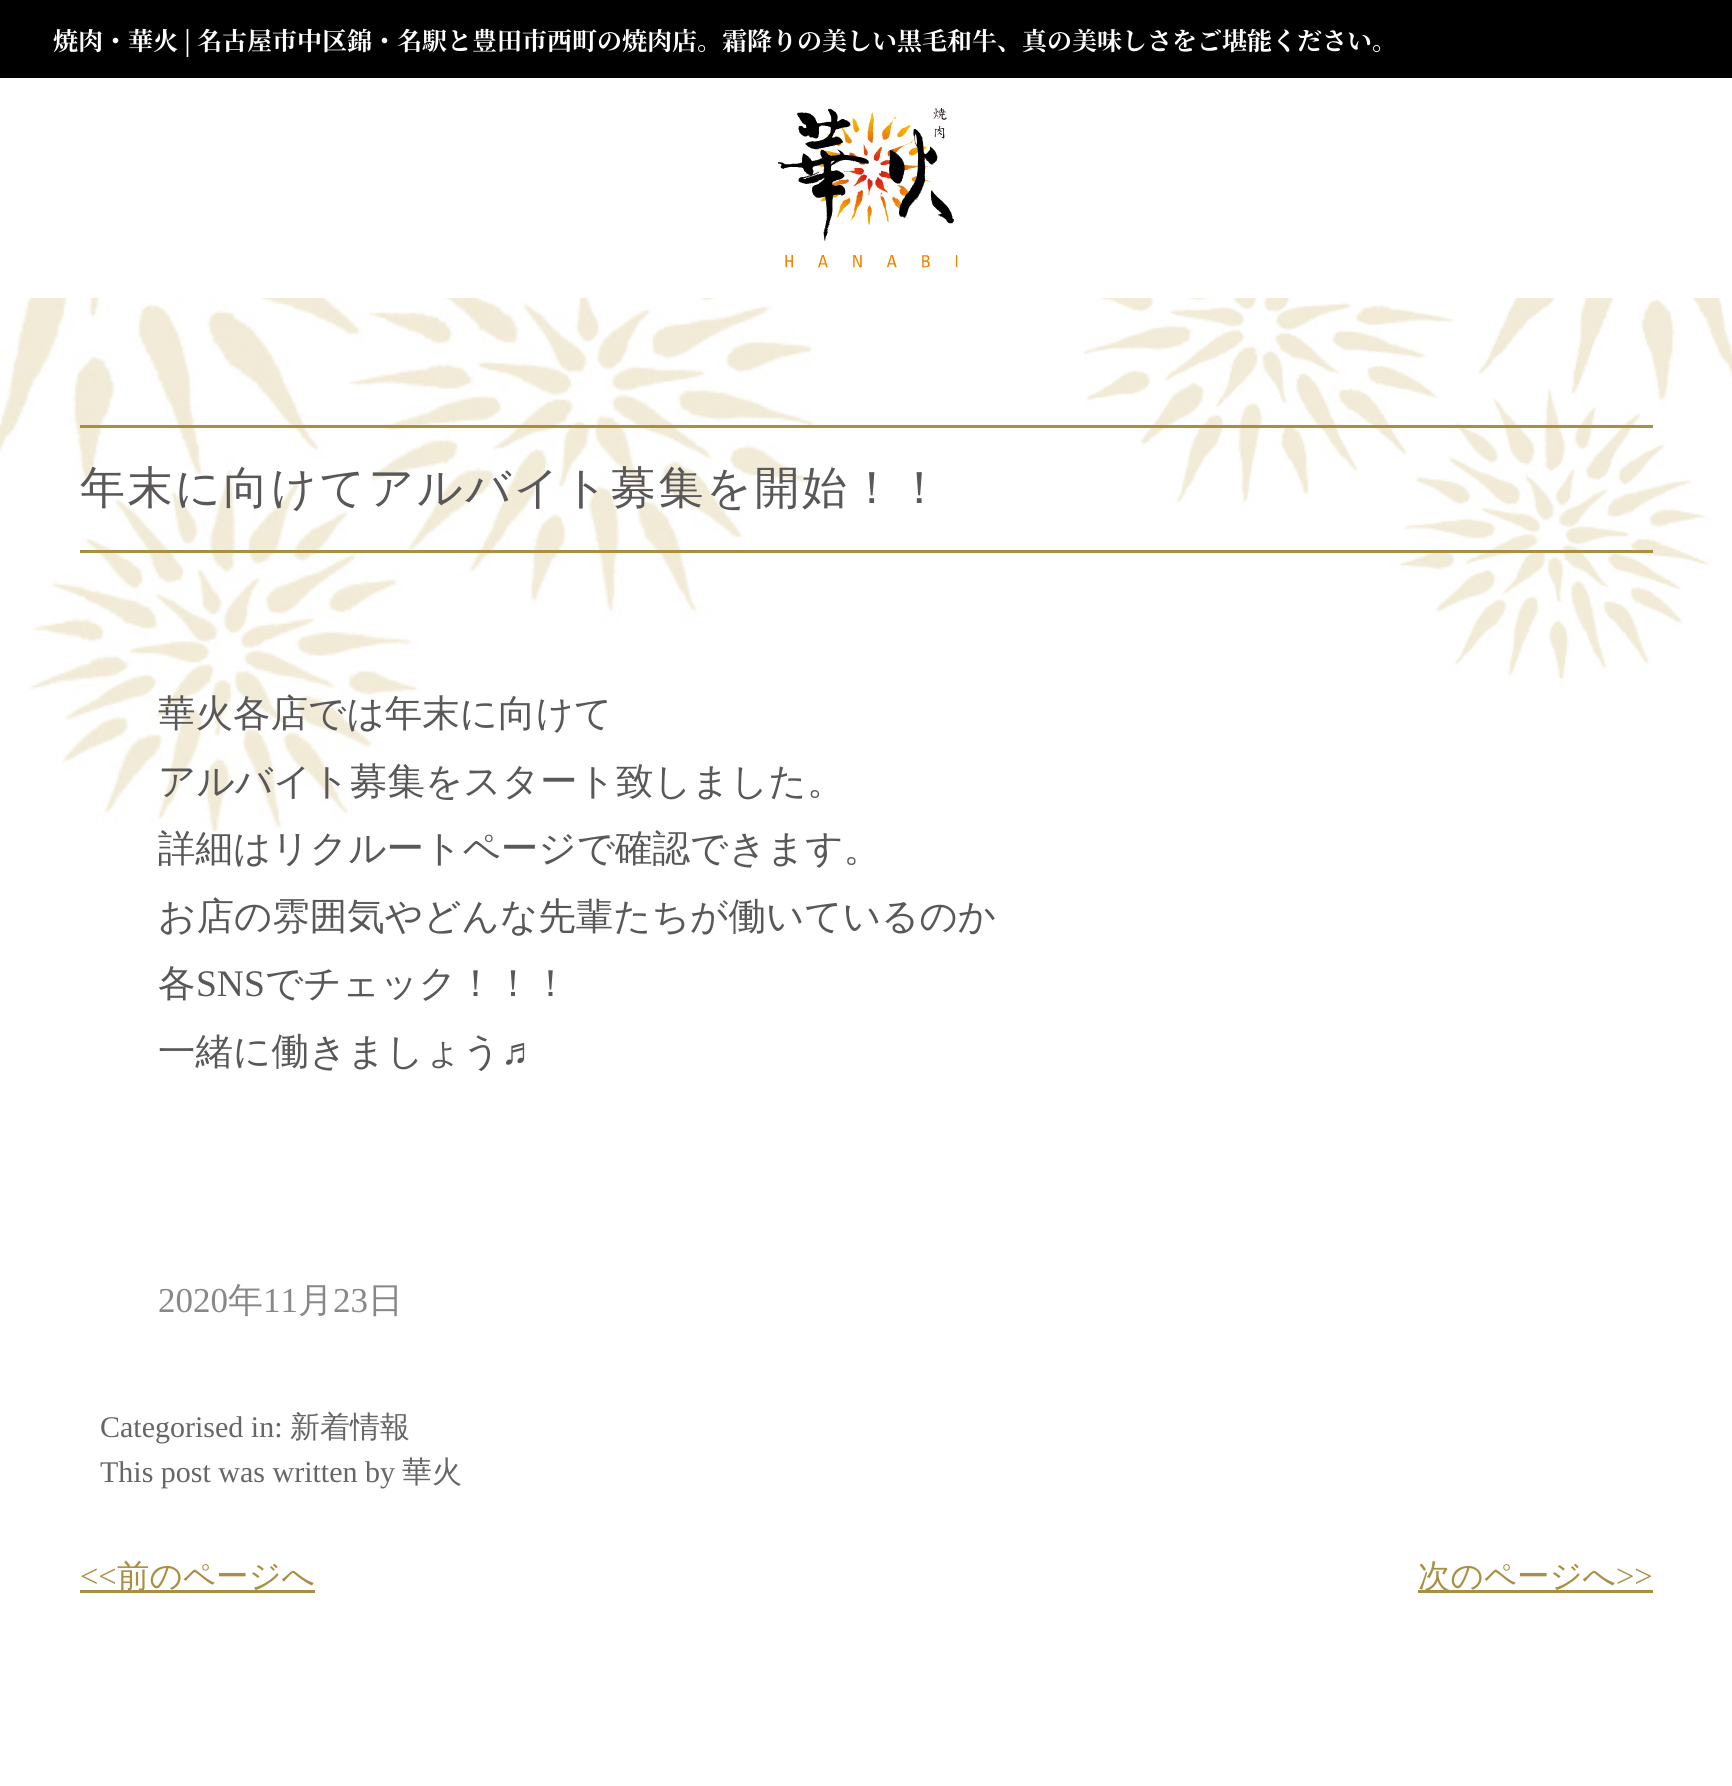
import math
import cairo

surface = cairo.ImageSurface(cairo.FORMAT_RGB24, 1732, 1786)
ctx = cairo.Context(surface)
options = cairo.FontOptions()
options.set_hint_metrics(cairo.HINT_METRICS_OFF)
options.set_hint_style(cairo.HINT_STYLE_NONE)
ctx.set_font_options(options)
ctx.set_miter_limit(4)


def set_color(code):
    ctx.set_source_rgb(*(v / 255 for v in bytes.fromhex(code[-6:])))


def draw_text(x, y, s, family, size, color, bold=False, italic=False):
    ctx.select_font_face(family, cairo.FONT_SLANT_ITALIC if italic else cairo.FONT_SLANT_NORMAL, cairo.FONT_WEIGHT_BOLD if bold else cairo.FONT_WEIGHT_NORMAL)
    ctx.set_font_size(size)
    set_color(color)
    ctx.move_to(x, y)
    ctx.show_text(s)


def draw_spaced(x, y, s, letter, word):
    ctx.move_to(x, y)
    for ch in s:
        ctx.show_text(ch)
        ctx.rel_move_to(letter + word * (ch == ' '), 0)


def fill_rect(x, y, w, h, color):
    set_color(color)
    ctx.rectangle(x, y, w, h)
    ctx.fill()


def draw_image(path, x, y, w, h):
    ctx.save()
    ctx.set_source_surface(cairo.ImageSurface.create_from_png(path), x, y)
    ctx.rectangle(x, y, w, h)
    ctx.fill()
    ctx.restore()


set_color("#ffffff")
ctx.paint()
draw_image("assets/img1.png", 0, 298, 1732, 537)
fill_rect(0, 0, 1732, 78, "#000000")
ctx.select_font_face("Noto Serif JP", cairo.FONT_SLANT_NORMAL, cairo.FONT_WEIGHT_BOLD)
ctx.set_font_size(25)
set_color("#ffffff")
draw_spaced(53, 50, "焼肉・華火 | 名古屋市中区錦・名駅と豊田市西町の焼肉店。霜降りの美しい黒毛和牛、真の美味しさをご堪能ください。", 0, -1)
draw_image("assets/img2.png", 778, 108, 180, 160)
fill_rect(80, 425, 1573, 3, "#a98f42")
fill_rect(80, 550, 1573, 3, "#a98f42")
ctx.select_font_face("WenQuanYi Zen Hei Medium")
ctx.set_font_size(45)
set_color("#595757")
draw_spaced(80, 503, "年末に向けてアルバイト募集を開始！！", 2.5, 0)
draw_text(158, 726, "華火各店では年末に向けて", "WenQuanYi Zen Hei Medium", 37.5, "#595757")
draw_text(158, 794, "アルバイト募集をスタート致しました。", "WenQuanYi Zen Hei Medium", 37.5, "#595757")
draw_text(158, 861, "詳細はリクルートページで確認できます。", "WenQuanYi Zen Hei Medium", 37.5, "#595757")
draw_text(158, 929, "お店の雰囲気やどんな先輩たちが働いているのか", "WenQuanYi Zen Hei Medium", 37.5, "#595757")
draw_text(158, 996, "各", "WenQuanYi Zen Hei Medium", 37.5, "#595757")
draw_text(196, 996, "SNS", "Liberation Serif", 37.5, "#595757")
draw_text(265, 996, "でチェック！！！", "WenQuanYi Zen Hei Medium", 37.5, "#595757")
draw_text(158, 1064, "一緒に働きましょう", "WenQuanYi Zen Hei Medium", 37.5, "#595757")
draw_text(501, 1064, "♬", "Liberation Serif", 37.5, "#595757")
draw_text(158, 1312, "2020", "Liberation Serif", 35, "#888888")
draw_text(228, 1312, "年", "WenQuanYi Zen Hei Medium", 35, "#888888")
draw_text(263, 1312, "11", "Liberation Serif", 35, "#888888")
draw_text(298, 1312, "月", "WenQuanYi Zen Hei Medium", 35, "#888888")
draw_text(333, 1312, "23", "Liberation Serif", 35, "#888888")
draw_text(368, 1312, "日", "WenQuanYi Zen Hei Medium", 35, "#888888")
draw_text(100, 1437, "Categorised in:", "Liberation Serif", 30, "#666666")
draw_text(290, 1437, "新着情報", "WenQuanYi Zen Hei Medium", 30, "#666666")
draw_text(100, 1482, "This post was written by", "Liberation Serif", 30, "#666666")
draw_text(402, 1482, "華火", "WenQuanYi Zen Hei Medium", 30, "#666666")
draw_text(80, 1587, "<<", "Liberation Serif", 32.5, "#a98f42")
fill_rect(80, 1590, 235, 3, "#a98f42")
draw_text(117, 1587, "前のページへ", "WenQuanYi Zen Hei Medium", 32.5, "#a98f42")
fill_rect(1418, 1590, 235, 3, "#a98f42")
draw_text(1418, 1587, "次のページへ", "WenQuanYi Zen Hei Medium", 32.5, "#a98f42")
draw_text(1616, 1587, ">>", "Liberation Serif", 32.5, "#a98f42")
surface.write_to_png("output.png")
